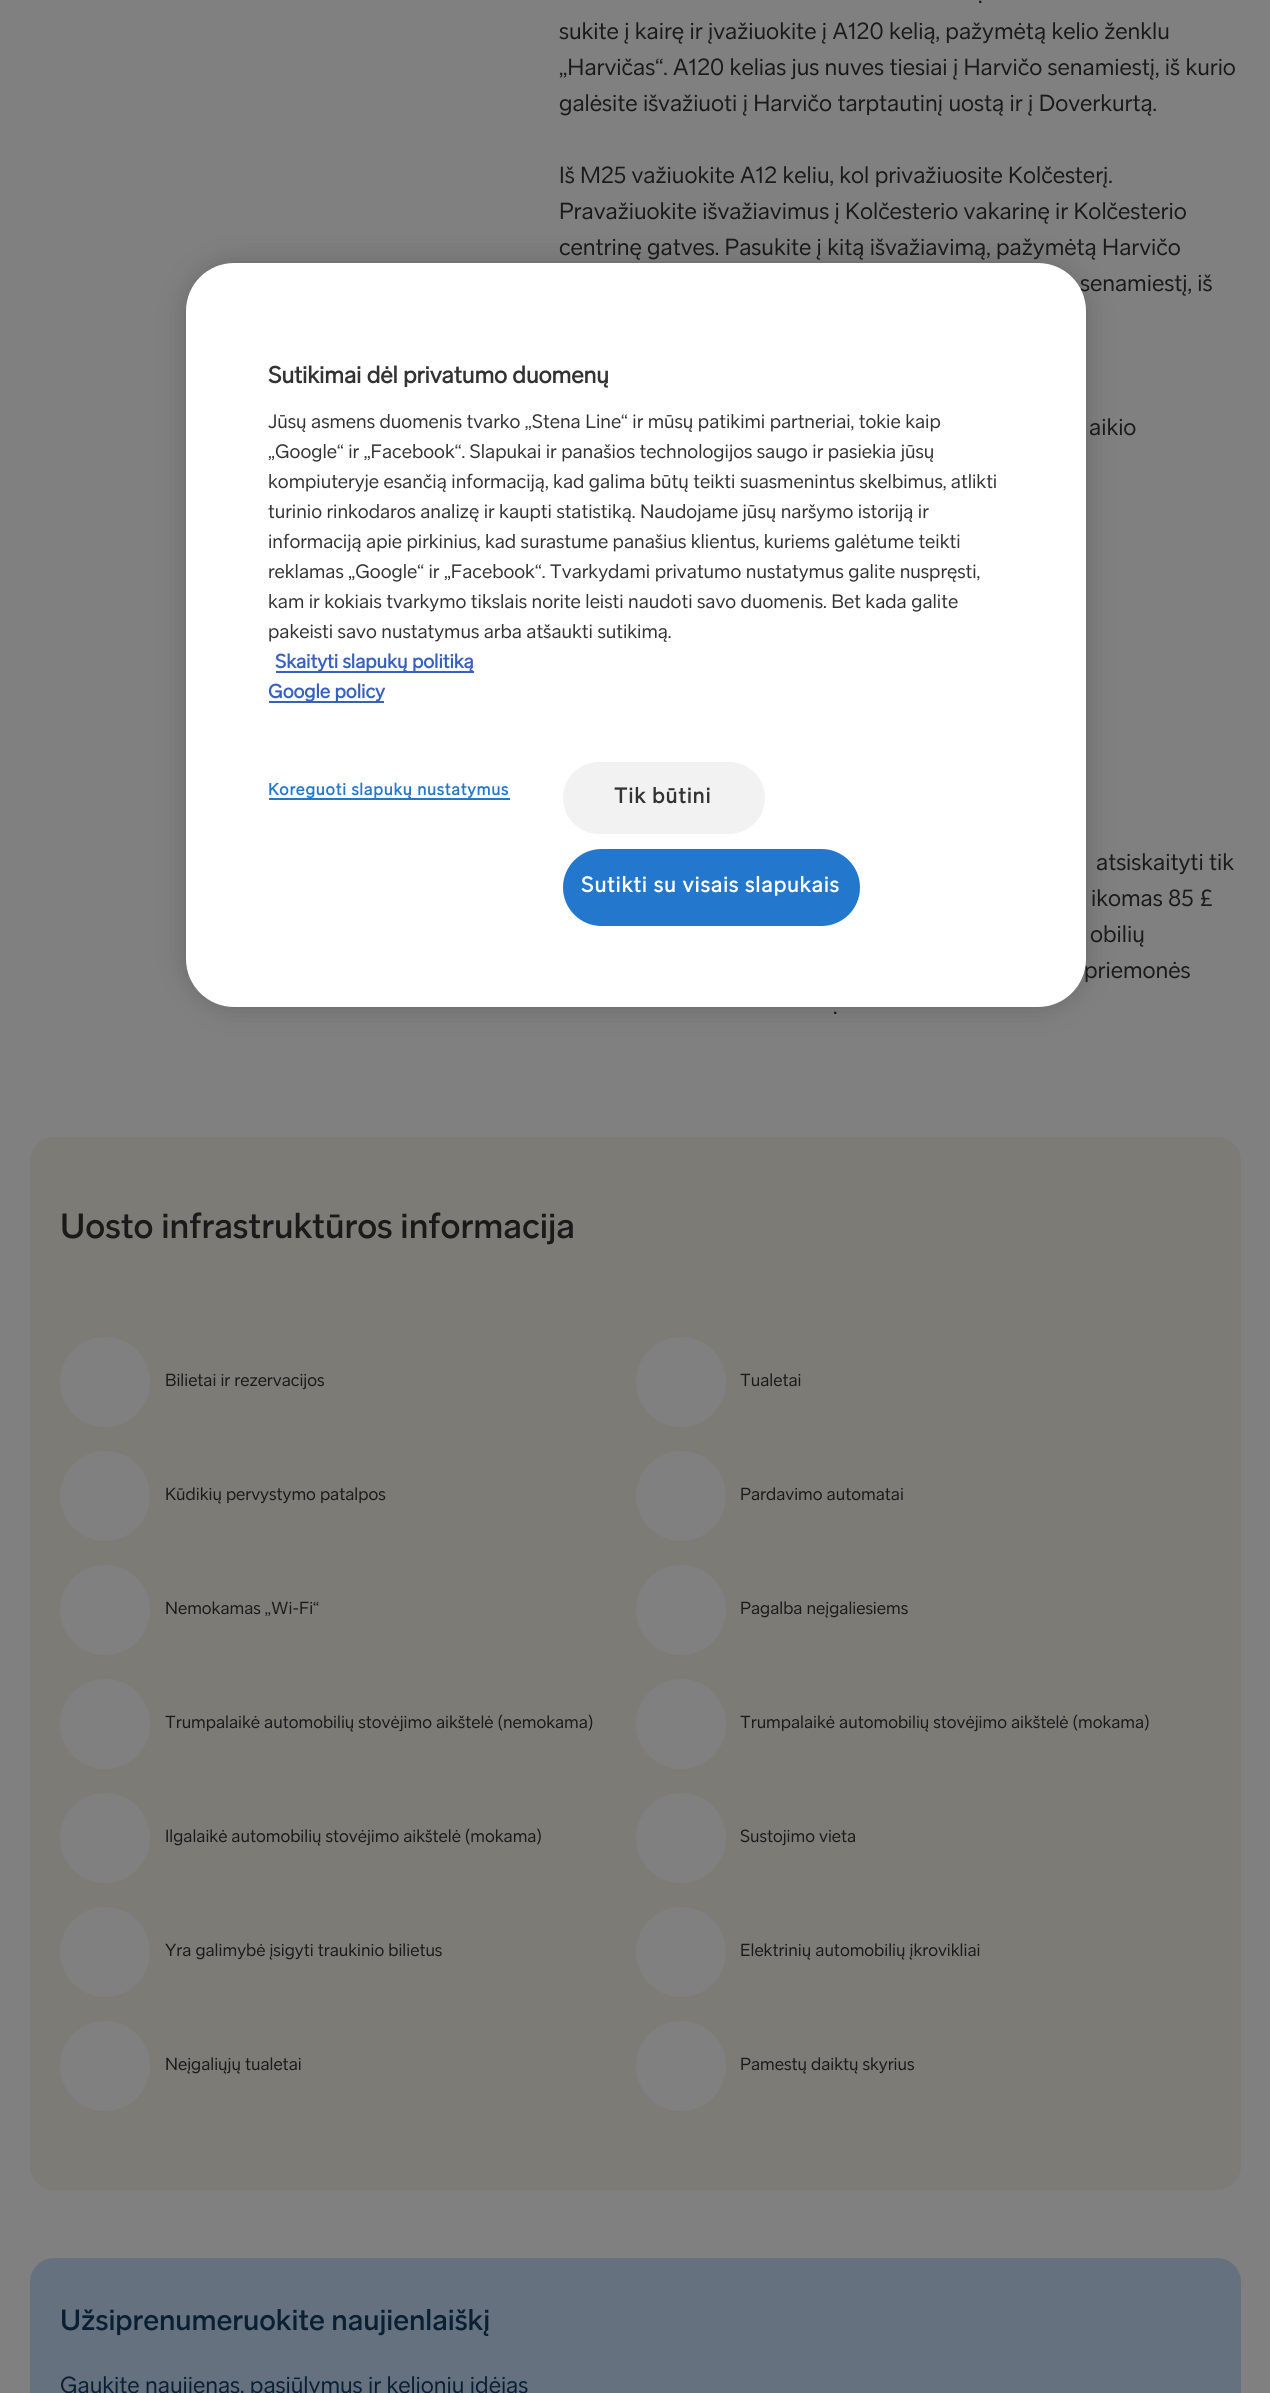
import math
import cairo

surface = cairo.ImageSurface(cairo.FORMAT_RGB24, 1270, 2393)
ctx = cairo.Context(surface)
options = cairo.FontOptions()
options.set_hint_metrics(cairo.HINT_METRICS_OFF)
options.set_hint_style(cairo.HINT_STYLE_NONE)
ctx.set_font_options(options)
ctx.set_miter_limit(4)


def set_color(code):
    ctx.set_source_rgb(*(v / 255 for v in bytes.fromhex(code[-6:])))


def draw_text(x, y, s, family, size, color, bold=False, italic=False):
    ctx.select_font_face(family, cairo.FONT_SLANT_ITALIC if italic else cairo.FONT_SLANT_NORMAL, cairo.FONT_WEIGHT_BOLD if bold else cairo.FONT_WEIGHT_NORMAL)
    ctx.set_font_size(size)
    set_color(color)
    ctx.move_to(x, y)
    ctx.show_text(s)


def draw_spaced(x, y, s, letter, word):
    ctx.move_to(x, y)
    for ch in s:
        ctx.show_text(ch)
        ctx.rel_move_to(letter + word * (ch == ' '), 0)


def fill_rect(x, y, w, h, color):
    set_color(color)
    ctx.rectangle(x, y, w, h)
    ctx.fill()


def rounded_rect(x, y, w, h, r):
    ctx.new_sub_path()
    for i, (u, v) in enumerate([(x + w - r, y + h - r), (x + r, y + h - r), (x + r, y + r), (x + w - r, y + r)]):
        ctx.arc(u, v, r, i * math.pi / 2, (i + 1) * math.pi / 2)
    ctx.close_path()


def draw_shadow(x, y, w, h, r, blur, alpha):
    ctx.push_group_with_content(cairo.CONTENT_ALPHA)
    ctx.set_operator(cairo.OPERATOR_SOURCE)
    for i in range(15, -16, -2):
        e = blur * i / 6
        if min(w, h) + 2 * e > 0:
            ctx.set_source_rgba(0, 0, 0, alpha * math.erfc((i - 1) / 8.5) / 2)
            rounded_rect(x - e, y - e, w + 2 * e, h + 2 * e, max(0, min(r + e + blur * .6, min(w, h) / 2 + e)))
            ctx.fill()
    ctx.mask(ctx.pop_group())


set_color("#808080")
ctx.paint()
draw_text(978, 3, ".", "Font", 24, "#1a1a1a")
draw_text(559, 39, "sukite į kairę ir įvažiuokite į A120 kelią, pažymėtą kelio ženklu", "Font", 24, "#1a1a1a")
draw_text(559, 75, "„Harvičas“. A120 kelias jus nuves tiesiai į Harvičo senamiestį, iš kurio", "Font", 24, "#1a1a1a")
draw_text(559, 111, "galėsite išvažiuoti į Harvičo tarptautinį uostą ir į Doverkurtą.", "Font", 24, "#1a1a1a")
draw_text(559, 183, "Iš M25 važiuokite A12 keliu, kol privažiuosite Kolčesterį.", "Font", 24, "#1a1a1a")
draw_text(559, 219, "Pravažiuokite išvažiavimus į Kolčesterio vakarinę ir Kolčesterio", "Font", 24, "#1a1a1a")
draw_text(559, 255, "centrinę gatves. Pasukite į kitą išvažiavimą, pažymėtą Harvičo", "Font", 24, "#1a1a1a")
draw_text(1080, 291, "senamiestį, iš", "Font", 24, "#1a1a1a")
draw_text(1089, 435, "aikio", "Font", 24, "#1a1a1a")
draw_text(1096, 870, "atsiskaityti tik", "Font", 24, "#1a1a1a")
draw_text(1091, 906, "ikomas 85 £", "Font", 24, "#1a1a1a")
draw_text(1090, 942, "obilių", "Font", 24, "#1a1a1a")
draw_text(1084, 978, "priemonės", "Font", 24, "#1a1a1a")
draw_text(833, 1014, ".", "Font", 24, "#1a1a1a")
set_color("#7d7b76")
rounded_rect(30, 1137, 1211, 1053, 24)
ctx.fill()
draw_text(60, 1238, "Uosto infrastruktūros informacija", "Font Medium", 36, "#1a1a1a")
set_color("#808080")
ctx.new_path()
ctx.arc(105, 1382, 45, 0, 2 * math.pi)
ctx.fill()
draw_text(165, 1386, "Bilietai ir rezervacijos", "Font", 18, "#1a1a1a")
set_color("#808080")
ctx.new_path()
ctx.arc(681, 1382, 45, 0, 2 * math.pi)
ctx.fill()
draw_text(740, 1386, "Tualetai", "Font", 18, "#1a1a1a")
set_color("#808080")
ctx.new_path()
ctx.arc(105, 1496, 45, 0, 2 * math.pi)
ctx.fill()
draw_text(165, 1500, "Kūdikių pervystymo patalpos", "Font", 18, "#1a1a1a")
set_color("#808080")
ctx.new_path()
ctx.arc(681, 1496, 45, 0, 2 * math.pi)
ctx.fill()
draw_text(740, 1500, "Pardavimo automatai", "Font", 18, "#1a1a1a")
set_color("#808080")
ctx.new_path()
ctx.arc(105, 1610, 45, 0, 2 * math.pi)
ctx.fill()
draw_text(165, 1614, "Nemokamas „Wi-Fi“", "Font", 18, "#1a1a1a")
set_color("#808080")
ctx.new_path()
ctx.arc(681, 1610, 45, 0, 2 * math.pi)
ctx.fill()
draw_text(740, 1614, "Pagalba neįgaliesiems", "Font", 18, "#1a1a1a")
set_color("#808080")
ctx.new_path()
ctx.arc(105, 1724, 45, 0, 2 * math.pi)
ctx.fill()
draw_text(165, 1728, "Trumpalaikė automobilių stovėjimo aikštelė (nemokama)", "Font", 18, "#1a1a1a")
set_color("#808080")
ctx.new_path()
ctx.arc(681, 1724, 45, 0, 2 * math.pi)
ctx.fill()
draw_text(740, 1728, "Trumpalaikė automobilių stovėjimo aikštelė (mokama)", "Font", 18, "#1a1a1a")
set_color("#808080")
ctx.new_path()
ctx.arc(105, 1838, 45, 0, 2 * math.pi)
ctx.fill()
draw_text(165, 1842, "Ilgalaikė automobilių stovėjimo aikštelė (mokama)", "Font", 18, "#1a1a1a")
set_color("#808080")
ctx.new_path()
ctx.arc(681, 1838, 45, 0, 2 * math.pi)
ctx.fill()
draw_text(740, 1842, "Sustojimo vieta", "Font", 18, "#1a1a1a")
set_color("#808080")
ctx.new_path()
ctx.arc(105, 1952, 45, 0, 2 * math.pi)
ctx.fill()
draw_text(165, 1956, "Yra galimybė įsigyti traukinio bilietus", "Font", 18, "#1a1a1a")
set_color("#808080")
ctx.new_path()
ctx.arc(681, 1952, 45, 0, 2 * math.pi)
ctx.fill()
draw_text(740, 1956, "Elektrinių automobilių įkrovikliai", "Font", 18, "#1a1a1a")
set_color("#808080")
ctx.new_path()
ctx.arc(105, 2066, 45, 0, 2 * math.pi)
ctx.fill()
draw_text(165, 2070, "Neįgaliųjų tualetai", "Font", 18, "#1a1a1a")
set_color("#808080")
ctx.new_path()
ctx.arc(681, 2066, 45, 0, 2 * math.pi)
ctx.fill()
draw_text(740, 2070, "Pamestų daiktų skyrius", "Font", 18, "#1a1a1a")
set_color("#65717e")
rounded_rect(30, 2258, 1211, 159, 24)
ctx.fill()
draw_text(60, 2330, "Užsiprenumeruokite naujienlaiškį", "Font Medium", 30, "#091f33")
draw_text(60, 2393, "Gaukite naujienas, pasiūlymus ir kelionių idėjas", "Font", 24, "#091f33")
set_color("#000000")
draw_shadow(186, 263, 900, 744, 48, 13.5, 0.2)
set_color("#ffffff")
rounded_rect(186, 263, 900, 744, 48)
ctx.fill()
draw_text(268, 383, "Sutikimai dėl privatumo duomenų", "Font", 24, "#333333", bold=True)
draw_text(268, 428, "Jūsų asmens duomenis tvarko „Stena Line“ ir mūsų patikimi partneriai, tokie kaip", "Font", 20, "#333333")
draw_text(268, 458, "„Google“ ir „Facebook“. Slapukai ir panašios technologijos saugo ir pasiekia jūsų", "Font", 20, "#333333")
draw_text(268, 488, "kompiuteryje esančią informaciją, kad galima būtų teikti suasmenintus skelbimus, atlikti", "Font", 20, "#333333")
draw_text(268, 518, "turinio rinkodaros analizę ir kaupti statistiką. Naudojame jūsų naršymo istoriją ir", "Font", 20, "#333333")
draw_text(268, 548, "informaciją apie pirkinius, kad surastume panašius klientus, kuriems galėtume teikti", "Font", 20, "#333333")
draw_text(268, 578, "reklamas „Google“ ir „Facebook“. Tvarkydami privatumo nustatymus galite nuspręsti,", "Font", 20, "#333333")
draw_text(268, 608, "kam ir kokiais tvarkymo tikslais norite leisti naudoti savo duomenis. Bet kada galite", "Font", 20, "#333333")
draw_text(268, 638, "pakeisti savo nustatymus arba atšaukti sutikimą.", "Font", 20, "#333333")
fill_rect(276, 671, 198, 2, "#3860be")
draw_text(275, 668, "Skaityti slapukų politiką", "Font", 20, "#3860be", bold=True)
fill_rect(269, 701, 115, 2, "#3860be")
draw_text(268, 698, "Google policy", "Font", 20, "#3860be", bold=True)
fill_rect(269, 798, 241, 2, "#2378cd")
ctx.set_font_size(17)
draw_spaced(268, 795, "Koreguoti slapukų nustatymus", 0.85, 0)
set_color("#f2f2f2")
rounded_rect(563, 762, 202, 72, 36)
ctx.fill()
ctx.set_font_size(22)
set_color("#333333")
draw_spaced(614, 803, "Tik būtini", 1.1, 0)
set_color("#2378cd")
rounded_rect(564, 850, 295, 75, 37.5)
ctx.fill_preserve()
ctx.stroke()
set_color("#ffffff")
draw_spaced(581, 892, "Sutikti su visais slapukais", 1.1, 0)
surface.write_to_png("output.png")
